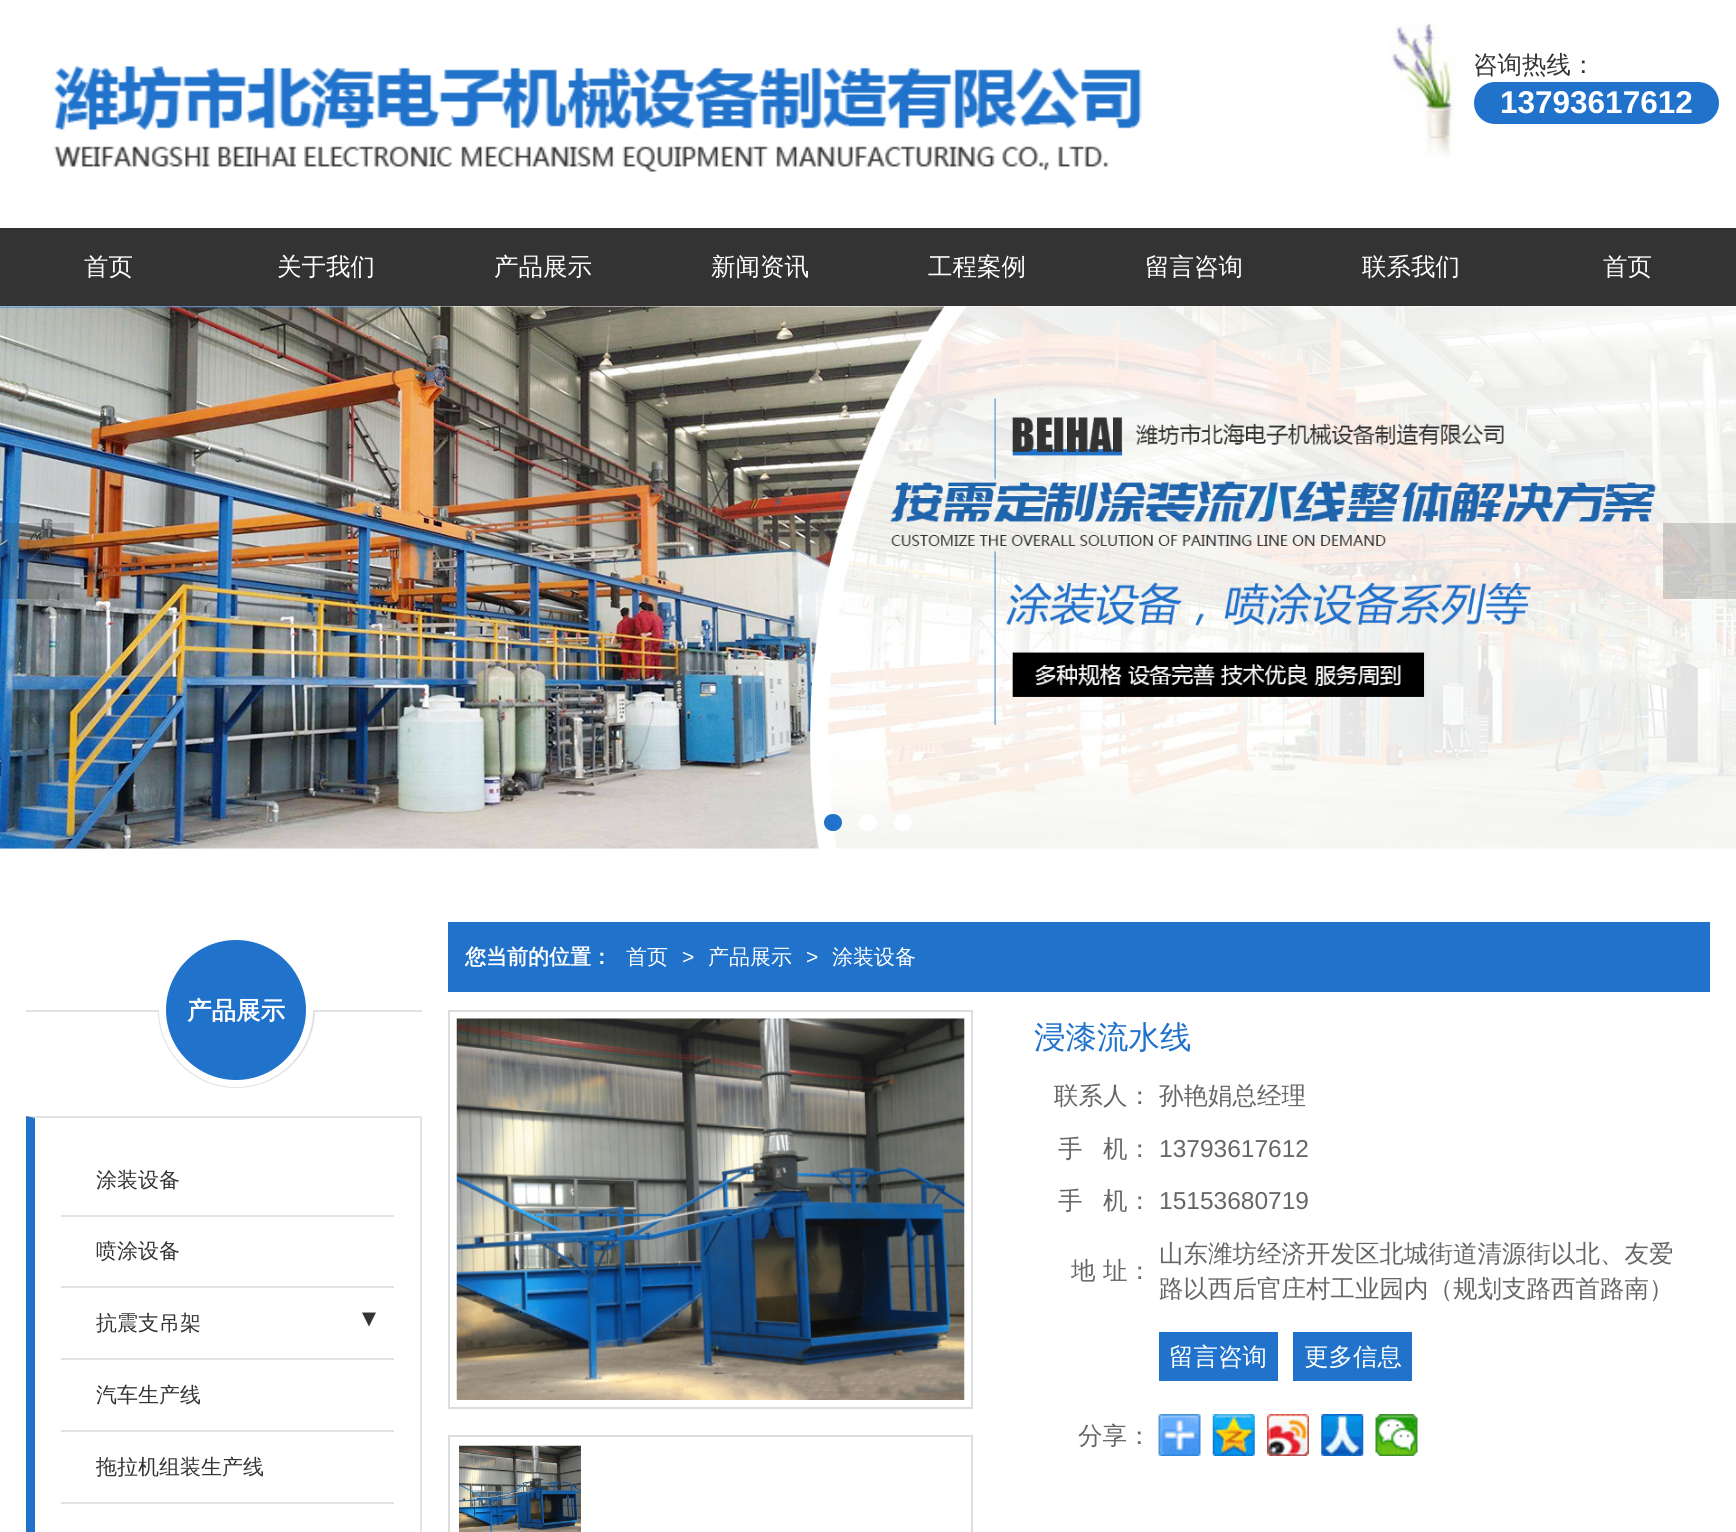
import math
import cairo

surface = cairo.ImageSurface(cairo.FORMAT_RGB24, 1736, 1532)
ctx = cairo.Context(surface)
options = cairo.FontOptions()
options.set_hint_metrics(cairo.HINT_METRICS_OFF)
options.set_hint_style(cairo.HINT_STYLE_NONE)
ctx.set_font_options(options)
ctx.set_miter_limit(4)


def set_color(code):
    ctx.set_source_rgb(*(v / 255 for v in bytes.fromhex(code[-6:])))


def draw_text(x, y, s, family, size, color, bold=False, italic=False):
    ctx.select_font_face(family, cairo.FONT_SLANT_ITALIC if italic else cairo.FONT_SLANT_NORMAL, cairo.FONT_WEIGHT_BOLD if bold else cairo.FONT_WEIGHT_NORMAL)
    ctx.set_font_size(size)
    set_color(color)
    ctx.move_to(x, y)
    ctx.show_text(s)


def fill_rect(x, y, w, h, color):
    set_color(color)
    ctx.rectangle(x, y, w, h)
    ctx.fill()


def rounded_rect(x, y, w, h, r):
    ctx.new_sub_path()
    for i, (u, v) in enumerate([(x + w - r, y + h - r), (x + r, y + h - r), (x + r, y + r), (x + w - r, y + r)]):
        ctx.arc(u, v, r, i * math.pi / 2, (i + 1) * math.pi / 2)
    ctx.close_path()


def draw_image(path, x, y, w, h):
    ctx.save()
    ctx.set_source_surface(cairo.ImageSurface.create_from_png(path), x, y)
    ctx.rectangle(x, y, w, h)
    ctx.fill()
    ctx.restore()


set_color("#ffffff")
ctx.paint()
draw_image("assets/img1.png", 53, 66, 1089, 106)
draw_image("assets/img2.png", 1389, 21, 67, 136)
draw_text(1473, 73, "咨询热线：", "WenQuanYi Zen Hei Medium", 24.5, "#333333")
set_color("#2072cb")
rounded_rect(1474, 82, 245, 42, 21)
ctx.fill()
draw_text(1500, 113, "13793617612", "Liberation Sans", 31.5, "#ffffff", bold=True)
fill_rect(0, 228, 1736, 78, "#333333")
draw_text(84, 275, "首页", "WenQuanYi Zen Hei Medium", 24.5, "#ffffff")
draw_text(277, 275, "关于我们", "WenQuanYi Zen Hei Medium", 24.5, "#ffffff")
draw_text(494, 275, "产品展示", "WenQuanYi Zen Hei Medium", 24.5, "#ffffff")
draw_text(711, 275, "新闻资讯", "WenQuanYi Zen Hei Medium", 24.5, "#ffffff")
draw_text(928, 275, "工程案例", "WenQuanYi Zen Hei Medium", 24.5, "#ffffff")
draw_text(1145, 275, "留言咨询", "WenQuanYi Zen Hei Medium", 24.5, "#ffffff")
draw_text(1362, 275, "联系我们", "WenQuanYi Zen Hei Medium", 24.5, "#ffffff")
draw_text(1603, 275, "首页", "WenQuanYi Zen Hei Medium", 24.5, "#ffffff")
draw_image("assets/img3.png", 0, 306, 1736, 543)
ctx.set_source_rgba(0.125, 0.447, 0.796, 0.4)
ctx.rectangle(0, 306, 432, 2)
ctx.fill()
ctx.set_source_rgba(0.224, 0.224, 0.224, 0.2)
ctx.rectangle(0, 523, 74, 76)
ctx.fill()
draw_image("assets/img4.png", 27, 544, 19, 34)
ctx.rectangle(1663, 523, 73, 76)
ctx.fill()
draw_image("assets/img5.png", 1691, 544, 17, 33)
set_color("#2072cb")
rounded_rect(824, 814, 18, 17, 8.5)
ctx.fill()
set_color("#ffffff")
rounded_rect(859, 814, 18, 17, 8.5)
ctx.fill()
rounded_rect(894, 814, 18, 17, 8.5)
ctx.fill()
fill_rect(26, 1010, 396, 2, "#e2e2e2")
set_color("#ffffff")
ctx.new_path()
ctx.move_to(158, 1010)
ctx.line_to(315, 1010)
ctx.line_to(315, 1010.5)
ctx.curve_to(315, 1054, 280, 1089, 236.5, 1089)
ctx.curve_to(193, 1089, 158, 1054, 158, 1010.5)
ctx.close_path()
ctx.fill()
set_color("#e2e2e2")
ctx.set_fill_rule(cairo.FILL_RULE_EVEN_ODD)
ctx.new_path()
ctx.move_to(158, 1010)
ctx.line_to(315, 1010)
ctx.curve_to(315, 1053, 280, 1088, 236, 1088)
ctx.curve_to(193, 1088, 158, 1053, 158, 1010)
ctx.close_path()
ctx.move_to(159, 1010)
ctx.line_to(313, 1010)
ctx.curve_to(313, 1052, 279, 1087, 236, 1087)
ctx.curve_to(194, 1087, 159, 1052, 159, 1010)
ctx.close_path()
ctx.fill()
set_color("#2072cb")
ctx.arc(236, 1010, 70, 0, 2 * math.pi)
ctx.fill()
draw_text(187, 1019, "产品展示", "WenQuanYi Zen Hei", 24.5, "#ffffff", bold=True)
set_color("#e2e2e2")
ctx.set_fill_rule(cairo.FILL_RULE_WINDING)
ctx.new_path()
ctx.move_to(26, 1116)
ctx.line_to(422, 1116)
ctx.line_to(420, 1118)
ctx.line_to(35, 1118)
ctx.close_path()
ctx.fill()
fill_rect(420, 1117, 2, 415, "#e2e2e2")
set_color("#2072cb")
ctx.new_path()
ctx.move_to(26, 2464)
ctx.line_to(26, 1116)
ctx.line_to(35, 1118)
ctx.line_to(35, 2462)
ctx.close_path()
ctx.fill()
fill_rect(61, 1215, 333, 2, "#e2e2e2")
draw_text(96, 1187, "涂装设备", "WenQuanYi Zen Hei Medium", 21, "#333333")
fill_rect(61, 1286, 333, 2, "#e2e2e2")
draw_text(96, 1258, "喷涂设备", "WenQuanYi Zen Hei Medium", 21, "#333333")
fill_rect(61, 1358, 333, 2, "#e2e2e2")
draw_text(96, 1330, "抗震支吊架", "WenQuanYi Zen Hei Medium", 21, "#333333")
ctx.new_path()
ctx.move_to(362, 1312.5)
ctx.line_to(376, 1312.5)
ctx.line_to(369, 1326.5)
ctx.close_path()
ctx.fill()
fill_rect(61, 1430, 333, 2, "#e2e2e2")
draw_text(96, 1402, "汽车生产线", "WenQuanYi Zen Hei Medium", 21, "#333333")
fill_rect(61, 1502, 333, 2, "#e2e2e2")
draw_text(96, 1474, "拖拉机组装生产线", "WenQuanYi Zen Hei Medium", 21, "#333333")
fill_rect(448, 922, 1262, 70, "#2072cb")
draw_text(465, 964, "您当前的位置：", "WenQuanYi Zen Hei", 21, "#ffffff", bold=True)
draw_text(626, 964, "首页", "WenQuanYi Zen Hei Medium", 21, "#ffffff")
draw_text(682, 964, ">", "Liberation Sans", 21, "#ffffff")
draw_text(708, 964, "产品展示", "WenQuanYi Zen Hei Medium", 21, "#ffffff")
draw_text(806, 964, ">", "Liberation Sans", 21, "#ffffff")
draw_text(832, 964, "涂装设备", "WenQuanYi Zen Hei Medium", 21, "#ffffff")
ctx.rectangle(449, 1011, 523, 397)
set_color("#dddddd")
ctx.stroke()
draw_image("assets/img6.png", 456, 1018, 509, 382)
ctx.rectangle(449, 1436, 523, 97)
ctx.stroke()
draw_image("assets/img7.png", 459, 1445, 122, 87)
draw_text(1034, 1048, "浸漆流水线", "WenQuanYi Zen Hei Medium", 31.5, "#2072cb")
draw_text(1054, 1104, "联系人：", "WenQuanYi Zen Hei Medium", 24.5, "#666666")
draw_text(1159, 1104, "孙艳娟总经理", "WenQuanYi Zen Hei Medium", 24.5, "#666666")
draw_text(1058, 1157, "手", "WenQuanYi Zen Hei Medium", 24.5, "#666666")
draw_text(1103, 1157, "机：", "WenQuanYi Zen Hei Medium", 24.5, "#666666")
draw_text(1159, 1157, "13793617612", "Liberation Sans", 24.5, "#666666")
draw_text(1058, 1209, "手", "WenQuanYi Zen Hei Medium", 24.5, "#666666")
draw_text(1103, 1209, "机：", "WenQuanYi Zen Hei Medium", 24.5, "#666666")
draw_text(1159, 1209, "15153680719", "Liberation Sans", 24.5, "#666666")
draw_text(1071, 1279, "地", "WenQuanYi Zen Hei Medium", 24.5, "#666666")
draw_text(1103, 1279, "址：", "WenQuanYi Zen Hei Medium", 24.5, "#666666")
draw_text(1159, 1262, "山东潍坊经济开发区北城街道清源街以北、友爱", "WenQuanYi Zen Hei Medium", 24.5, "#666666")
draw_text(1159, 1297, "路以西后官庄村工业园内（规划支路西首路南）", "WenQuanYi Zen Hei Medium", 24.5, "#666666")
fill_rect(1159, 1332, 119, 49, "#2072cb")
draw_text(1169, 1365, "留言咨询", "WenQuanYi Zen Hei Medium", 24.5, "#ffffff")
fill_rect(1293, 1332, 119, 49, "#2072cb")
draw_text(1304, 1365, "更多信息", "WenQuanYi Zen Hei Medium", 24.5, "#ffffff")
draw_text(1078, 1444, "分享：", "WenQuanYi Zen Hei Medium", 24.5, "#666666")
draw_image("assets/img8.png", 1158, 1414, 43, 42)
draw_image("assets/img9.png", 1212, 1414, 43, 42)
draw_image("assets/img10.png", 1267, 1414, 42, 42)
draw_image("assets/img11.png", 1321, 1414, 43, 42)
draw_image("assets/img12.png", 1375, 1414, 43, 42)
surface.write_to_png("output.png")
